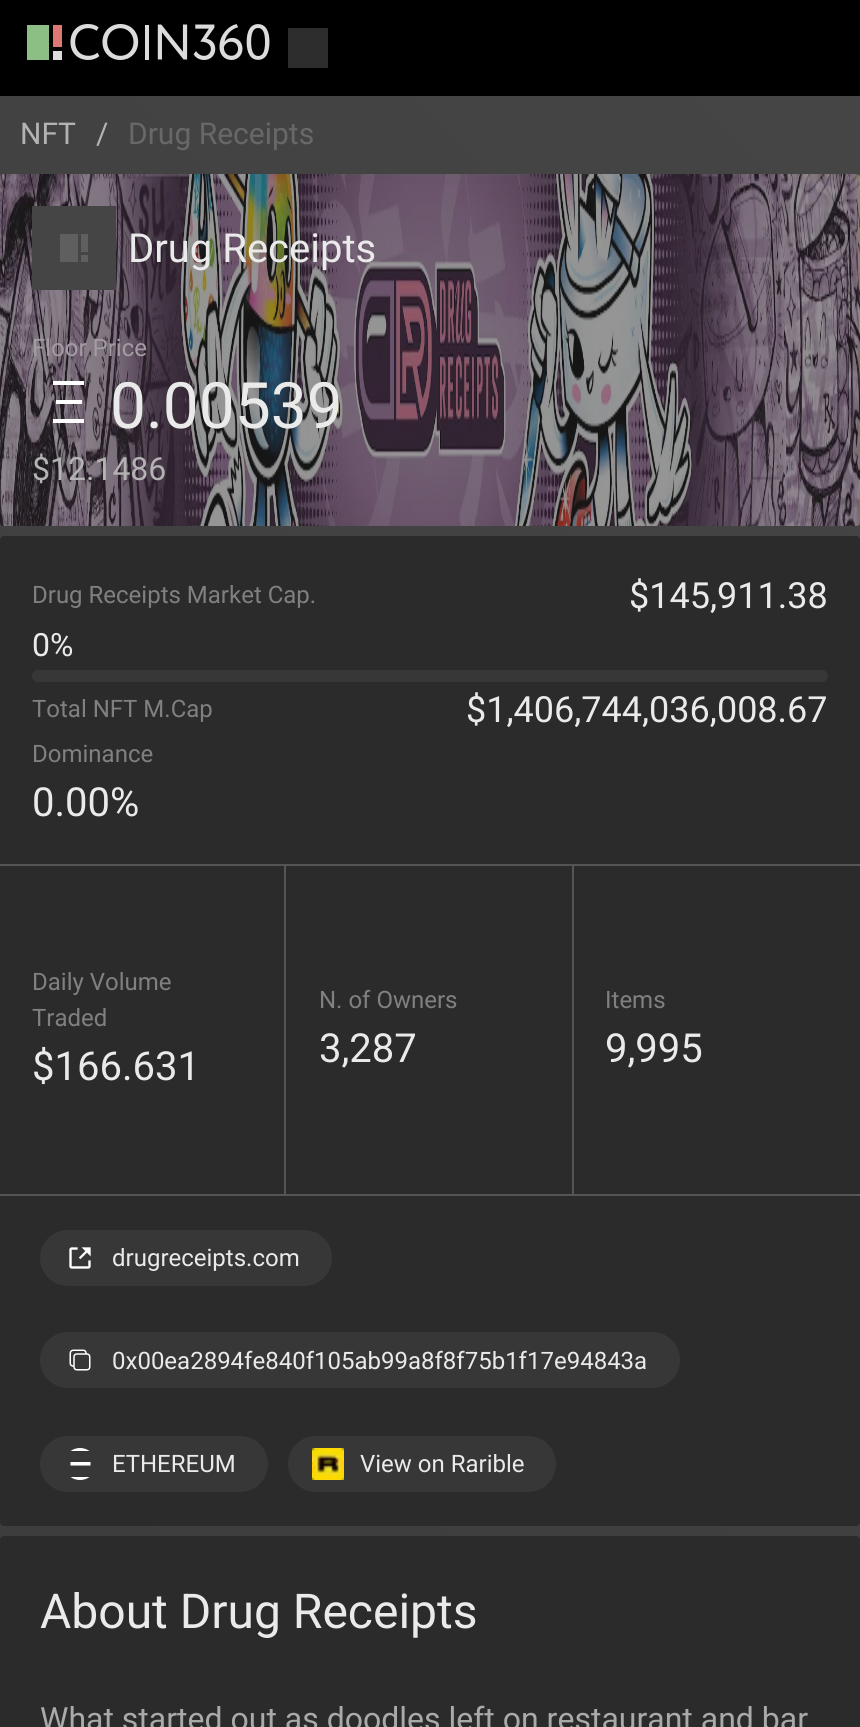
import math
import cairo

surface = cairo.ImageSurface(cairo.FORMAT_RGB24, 860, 1727)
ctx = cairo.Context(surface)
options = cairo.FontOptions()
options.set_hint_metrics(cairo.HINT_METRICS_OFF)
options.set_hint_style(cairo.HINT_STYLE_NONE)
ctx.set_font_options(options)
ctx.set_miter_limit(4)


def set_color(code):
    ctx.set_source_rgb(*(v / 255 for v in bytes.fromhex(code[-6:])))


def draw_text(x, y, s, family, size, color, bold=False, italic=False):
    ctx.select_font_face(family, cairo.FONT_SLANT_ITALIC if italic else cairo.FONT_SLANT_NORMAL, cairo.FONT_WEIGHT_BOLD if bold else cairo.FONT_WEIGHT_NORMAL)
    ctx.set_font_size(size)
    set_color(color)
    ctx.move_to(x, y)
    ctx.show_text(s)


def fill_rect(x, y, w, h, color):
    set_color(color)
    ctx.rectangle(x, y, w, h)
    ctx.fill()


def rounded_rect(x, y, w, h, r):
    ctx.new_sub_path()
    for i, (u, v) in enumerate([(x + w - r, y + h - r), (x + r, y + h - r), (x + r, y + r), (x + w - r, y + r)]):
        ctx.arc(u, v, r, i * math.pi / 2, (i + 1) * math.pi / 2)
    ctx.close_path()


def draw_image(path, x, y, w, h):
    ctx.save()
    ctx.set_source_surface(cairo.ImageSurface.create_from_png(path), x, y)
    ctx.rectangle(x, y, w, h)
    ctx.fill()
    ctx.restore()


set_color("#ffffff")
ctx.paint()
fill_rect(0, 0, 860, 96, "#000000")
draw_image("assets/img1.png", 27, 24, 243, 36)
fill_rect(288, 28, 40, 40, "#2d2d2d")
gradient = cairo.LinearGradient(-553, 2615, 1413, 649)
gradient.add_color_stop_rgba(0, 0.216, 0.216, 0.216, 1)
gradient.add_color_stop_rgba(1, 0.271, 0.271, 0.271, 1)
ctx.set_source(gradient)
ctx.rectangle(0, 96, 860, 1444)
ctx.fill()
draw_text(20, 144, "NFT", "Roboto", 30, "#b3b3b3")
draw_text(96, 144, "/", "Roboto", 30, "#b3b3b3")
draw_text(128, 144, "Drug Receipts", "Roboto", 30, "#686868")
set_color("#2b2b2b")
rounded_rect(0, 174, 860, 352, 4)
ctx.fill()
draw_image("assets/img2.png", 0, 174, 860, 352)
fill_rect(32, 206, 84, 84, "#454545")
fill_rect(60, 234, 18, 28, "#5f5f5f")
fill_rect(81, 234, 7, 18, "#5f5f5f")
fill_rect(81, 255, 7, 7, "#5f5f5f")
draw_text(128, 262, "Drug Receipts", "Roboto", 40, "#eaeaea")
draw_text(32, 356, "Floor Price", "Roboto", 24, "#a39ca3")
set_color("#ffffff")
ctx.new_path()
ctx.move_to(53, 381)
ctx.line_to(84, 381)
ctx.line_to(84, 385)
ctx.line_to(53, 385)
ctx.close_path()
ctx.move_to(56, 400)
ctx.line_to(82, 400)
ctx.line_to(82, 404)
ctx.line_to(56, 404)
ctx.close_path()
ctx.move_to(53, 419)
ctx.line_to(84, 419)
ctx.line_to(84, 423)
ctx.line_to(53, 423)
ctx.close_path()
ctx.fill()
draw_text(110, 428, "0.00539", "Roboto", 64, "#eaeaea")
draw_text(32, 480, "$12.1486", "Roboto", 32, "#b3b3b3")
set_color("#2b2b2b")
rounded_rect(0, 536, 860, 990, 4)
ctx.fill()
fill_rect(0, 864, 860, 2, "#555555")
draw_text(32, 603, "Drug Receipts Market Cap.", "Roboto", 24, "#808080")
draw_text(629, 608, "$145,911.38", "Roboto", 36, "#eaeaea")
draw_text(32, 656, "0%", "Roboto", 32, "#eaeaea")
set_color("#373737")
rounded_rect(32, 670, 796, 12, 6)
ctx.fill()
draw_text(32, 717, "Total NFT M.Cap", "Roboto", 24, "#808080")
draw_text(466, 722, "$1,406,744,036,008.67", "Roboto", 36, "#eaeaea")
draw_text(32, 762, "Dominance", "Roboto", 24, "#808080")
draw_text(32, 816, "0.00%", "Roboto", 40, "#eaeaea")
set_color("#555555")
ctx.new_path()
ctx.move_to(286, 866)
ctx.line_to(286, 1196)
ctx.line_to(284, 1194)
ctx.line_to(284, 866)
ctx.close_path()
ctx.fill()
ctx.set_source_rgba(1, 1, 1, 0.2)
ctx.new_path()
ctx.move_to(286, 1196)
ctx.line_to(0, 1196)
ctx.line_to(0, 1194)
ctx.line_to(284, 1194)
ctx.close_path()
ctx.fill()
draw_text(32, 990, "Daily Volume", "Roboto", 24, "#808080")
draw_text(32, 1026, "Traded", "Roboto", 24, "#808080")
draw_text(32, 1080, "$166.631", "Roboto", 40, "#eaeaea")
set_color("#555555")
ctx.new_path()
ctx.move_to(574, 866)
ctx.line_to(574, 1196)
ctx.line_to(572, 1194)
ctx.line_to(572, 866)
ctx.close_path()
ctx.fill()
ctx.set_source_rgba(1, 1, 1, 0.2)
ctx.new_path()
ctx.move_to(574, 1196)
ctx.line_to(286, 1196)
ctx.line_to(286, 1194)
ctx.line_to(572, 1194)
ctx.close_path()
ctx.fill()
draw_text(319, 1008, "N. of Owners", "Roboto", 24, "#808080")
draw_text(319, 1062, "3,287", "Roboto", 40, "#eaeaea")
fill_rect(574, 1194, 286, 2, "#555555")
draw_text(605, 1008, "Items", "Roboto", 24, "#808080")
draw_text(605, 1062, "9,995", "Roboto", 40, "#eaeaea")
set_color("#373737")
rounded_rect(40, 1230, 292, 56, 28)
ctx.fill()
draw_image("assets/img3.png", 69, 1247, 22, 22)
draw_text(112, 1266, "drugreceipts.com", "Roboto", 24, "#eaeaea")
set_color("#373737")
rounded_rect(40, 1332, 640, 56, 28)
ctx.fill()
draw_image("assets/img4.png", 69, 1349, 22, 22)
draw_text(112, 1369, "0x00ea2894fe840f105ab99a8f8f75b1f17e94843a", "Roboto", 24, "#eaeaea")
set_color("#373737")
rounded_rect(40, 1436, 228, 56, 28)
ctx.fill()
set_color("#ffffff")
ctx.set_fill_rule(cairo.FILL_RULE_EVEN_ODD)
ctx.new_path()
ctx.move_to(89.5, 1477)
ctx.curve_to(84, 1481, 76, 1481, 70.5, 1477)
ctx.close_path()
ctx.move_to(80, 1448)
ctx.curve_to(83.5, 1448, 86.5, 1449, 89.5, 1451)
ctx.line_to(70.5, 1451)
ctx.curve_to(73.5, 1449, 76.5, 1448, 80, 1448)
ctx.close_path()
ctx.move_to(70.5, 1462)
ctx.line_to(70.5, 1465.5)
ctx.line_to(90.5, 1465.5)
ctx.line_to(90.5, 1462)
ctx.close_path()
ctx.fill()
draw_text(112, 1472, "ETHEREUM", "Roboto", 24, "#eaeaea")
set_color("#373737")
rounded_rect(288, 1436, 268, 56, 28)
ctx.fill()
draw_image("assets/img5.png", 312, 1448, 32, 32)
draw_text(360, 1472, "View on Rarible", "Roboto", 24, "#eaeaea")
set_color("#2b2b2b")
rounded_rect(0, 1536, 860, 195, 4)
ctx.fill()
draw_text(40, 1628, "About Drug Receipts", "Roboto", 48, "#eaeaea")
draw_text(40, 1730, "What started out as doodles left on restaurant and bar", "Roboto", 32, "#aaaaaa")
surface.write_to_png("output.png")
